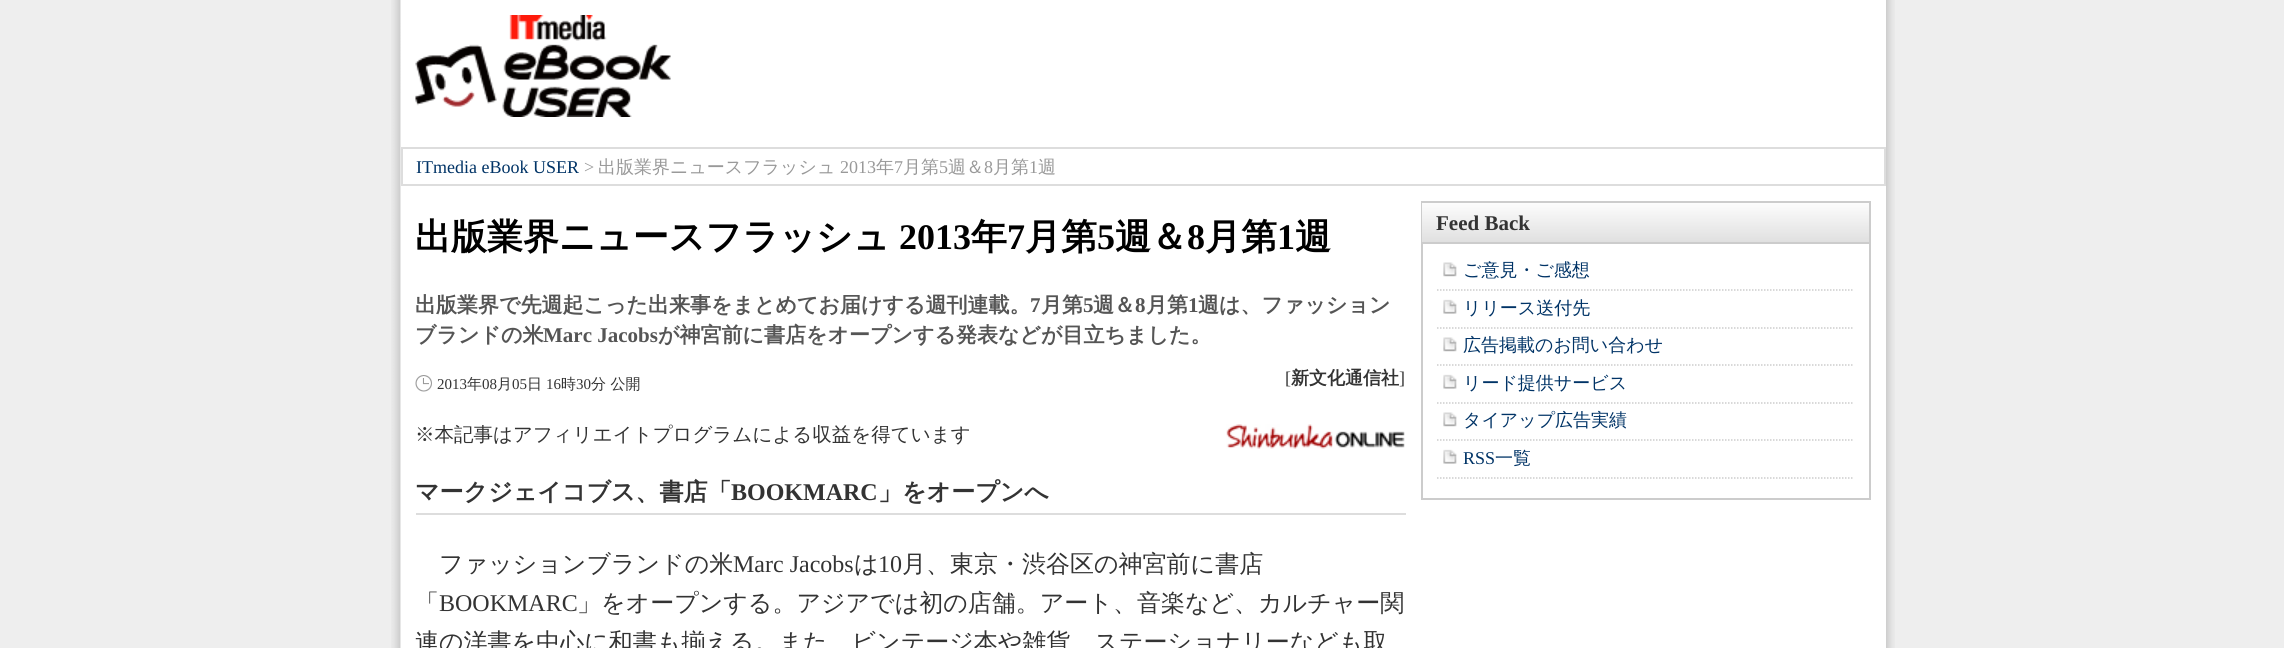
import math
import cairo

surface = cairo.ImageSurface(cairo.FORMAT_RGB24, 2284, 648)
ctx = cairo.Context(surface)
options = cairo.FontOptions()
options.set_hint_metrics(cairo.HINT_METRICS_OFF)
options.set_hint_style(cairo.HINT_STYLE_NONE)
ctx.set_font_options(options)
ctx.set_miter_limit(4)


def set_color(code):
    ctx.set_source_rgb(*(v / 255 for v in bytes.fromhex(code[-6:])))


def draw_text(x, y, s, family, size, color, bold=False, italic=False):
    ctx.select_font_face(family, cairo.FONT_SLANT_ITALIC if italic else cairo.FONT_SLANT_NORMAL, cairo.FONT_WEIGHT_BOLD if bold else cairo.FONT_WEIGHT_NORMAL)
    ctx.set_font_size(size)
    set_color(color)
    ctx.move_to(x, y)
    ctx.show_text(s)


def fill_rect(x, y, w, h, color):
    set_color(color)
    ctx.rectangle(x, y, w, h)
    ctx.fill()


def draw_image(path, x, y, w, h):
    ctx.save()
    ctx.set_source_surface(cairo.ImageSurface.create_from_png(path), x, y)
    ctx.rectangle(x, y, w, h)
    ctx.fill()
    ctx.restore()


set_color("#eeeeee")
ctx.paint()
draw_image("assets/img1.png", 391, 0, 1504, 648)
fill_rect(1885, 0, 1, 648, "#ffffff")
draw_image("assets/img2.png", 415, 15, 256, 102)
ctx.rectangle(402, 148, 1483, 37)
set_color("#dddddd")
ctx.stroke()
draw_text(416, 173, "ITmedia eBook USER", "Liberation Serif", 18, "#003366")
draw_text(584, 173, ">", "Liberation Serif", 18, "#999999")
draw_text(598, 173, "出版業界ニュースフラッシュ", "WenQuanYi Zen Hei Medium", 18, "#999999")
draw_text(840, 173, "2013", "Liberation Serif", 18, "#999999")
draw_text(876, 173, "年", "WenQuanYi Zen Hei Medium", 18, "#999999")
draw_text(894, 173, "7", "Liberation Serif", 18, "#999999")
draw_text(903, 173, "月第", "WenQuanYi Zen Hei Medium", 18, "#999999")
draw_text(939, 173, "5", "Liberation Serif", 18, "#999999")
draw_text(948, 173, "週＆", "WenQuanYi Zen Hei Medium", 18, "#999999")
draw_text(984, 173, "8", "Liberation Serif", 18, "#999999")
draw_text(993, 173, "月第", "WenQuanYi Zen Hei Medium", 18, "#999999")
draw_text(1029, 173, "1", "Liberation Serif", 18, "#999999")
draw_text(1038, 173, "週", "WenQuanYi Zen Hei Medium", 18, "#999999")
draw_text(415, 249, "出版業界ニュースフラッシュ", "WenQuanYi Zen Hei", 36, "#000000", bold=True)
draw_text(899, 249, "2013", "Liberation Serif", 36, "#000000", bold=True)
draw_text(971, 249, "年", "WenQuanYi Zen Hei", 36, "#000000", bold=True)
draw_text(1007, 249, "7", "Liberation Serif", 36, "#000000", bold=True)
draw_text(1025, 249, "月第", "WenQuanYi Zen Hei", 36, "#000000", bold=True)
draw_text(1097, 249, "5", "Liberation Serif", 36, "#000000", bold=True)
draw_text(1115, 249, "週＆", "WenQuanYi Zen Hei", 36, "#000000", bold=True)
draw_text(1187, 249, "8", "Liberation Serif", 36, "#000000", bold=True)
draw_text(1205, 249, "月第", "WenQuanYi Zen Hei", 36, "#000000", bold=True)
draw_text(1277, 249, "1", "Liberation Serif", 36, "#000000", bold=True)
draw_text(1295, 249, "週", "WenQuanYi Zen Hei", 36, "#000000", bold=True)
draw_text(415, 312, "出版業界で先週起こった出来事をまとめてお届けする週刊連載。", "WenQuanYi Zen Hei", 21, "#555555", bold=True)
draw_text(1030, 312, "7", "Liberation Serif", 21, "#555555", bold=True)
draw_text(1041, 312, "月第", "WenQuanYi Zen Hei", 21, "#555555", bold=True)
draw_text(1083, 312, "5", "Liberation Serif", 21, "#555555", bold=True)
draw_text(1093, 312, "週＆", "WenQuanYi Zen Hei", 21, "#555555", bold=True)
draw_text(1135, 312, "8", "Liberation Serif", 21, "#555555", bold=True)
draw_text(1146, 312, "月第", "WenQuanYi Zen Hei", 21, "#555555", bold=True)
draw_text(1188, 312, "1", "Liberation Serif", 21, "#555555", bold=True)
draw_text(1198, 312, "週は、ファッション", "WenQuanYi Zen Hei", 21, "#555555", bold=True)
draw_text(415, 342, "ブランドの米", "WenQuanYi Zen Hei", 21, "#555555", bold=True)
draw_text(543, 342, "Marc Jacobs", "Liberation Serif", 21, "#555555", bold=True)
draw_text(658, 342, "が神宮前に書店をオープンする発表などが目立ちました。", "WenQuanYi Zen Hei", 21, "#555555", bold=True)
draw_image("assets/img3.png", 415, 375, 17, 17)
draw_text(437, 389, "2013", "Liberation Serif", 15, "#333333")
draw_text(467, 389, "年", "WenQuanYi Zen Hei Medium", 15, "#333333")
draw_text(482, 389, "08", "Liberation Serif", 15, "#333333")
draw_text(497, 389, "月", "WenQuanYi Zen Hei Medium", 15, "#333333")
draw_text(512, 389, "05", "Liberation Serif", 15, "#333333")
draw_text(527, 389, "日", "WenQuanYi Zen Hei Medium", 15, "#333333")
draw_text(546, 389, "16", "Liberation Serif", 15, "#333333")
draw_text(561, 389, "時", "WenQuanYi Zen Hei Medium", 15, "#333333")
draw_text(576, 389, "30", "Liberation Serif", 15, "#333333")
draw_text(591, 389, "分 公開", "WenQuanYi Zen Hei Medium", 15, "#333333")
draw_text(1285, 384, "[", "Liberation Serif", 18, "#333333")
draw_text(1291, 384, "新文化通信社", "WenQuanYi Zen Hei", 18, "#333333", bold=True)
draw_text(1399, 384, "]", "Liberation Serif", 18, "#333333")
draw_text(415, 441, "※本記事はアフィリエイトプログラムによる収益を得ています", "WenQuanYi Zen Hei Medium", 19.5, "#333333")
draw_image("assets/img4.png", 1226, 424, 179, 25)
fill_rect(416, 513, 990, 2, "#dddddd")
draw_text(415, 500, "マークジェイコブス、書店「", "WenQuanYi Zen Hei", 24, "#333333", bold=True)
draw_text(731, 500, "BOOKMARC", "Liberation Serif", 24, "#333333", bold=True)
draw_text(878, 500, "」をオープンへ", "WenQuanYi Zen Hei", 24, "#333333", bold=True)
draw_text(439, 572, "ファッションブランドの米", "WenQuanYi Zen Hei Medium", 24, "#333333")
draw_text(733, 572, "Marc Jacobs", "Liberation Serif", 24, "#333333")
draw_text(854, 572, "は", "WenQuanYi Zen Hei Medium", 24, "#333333")
draw_text(878, 572, "10", "Liberation Serif", 24, "#333333")
draw_text(902, 572, "月、東京・渋谷区の神宮前に書店", "WenQuanYi Zen Hei Medium", 24, "#333333")
draw_text(415, 611, "「", "WenQuanYi Zen Hei Medium", 24, "#333333")
draw_text(439, 611, "BOOKMARC", "Liberation Serif", 24, "#333333")
draw_text(577, 611, "」をオープンする。アジアでは初の店舗。アート、音楽など、カルチャー関", "WenQuanYi Zen Hei Medium", 24, "#333333")
draw_text(415, 650, "連の洋書を中心に和書も揃える。また、ビンテージ本や雑貨、ステーショナリーなども取", "WenQuanYi Zen Hei Medium", 24, "#333333")
ctx.rectangle(1422, 202, 448, 297)
set_color("#cccccc")
ctx.stroke()
gradient = cairo.LinearGradient(1646, 202, 1646, 242)
gradient.add_color_stop_rgba(0, 0.992, 0.992, 0.992, 1)
gradient.add_color_stop_rgba(1, 0.878, 0.878, 0.878, 1)
ctx.set_source(gradient)
ctx.rectangle(1422, 203, 447, 39)
ctx.fill()
fill_rect(1422, 242, 447, 2, "#cccccc")
draw_text(1436, 230, "Feed Back", "Liberation Serif", 21, "#333333", bold=True)
draw_image("assets/img5.png", 1443, 262, 14, 15)
ctx.new_path()
ctx.move_to(1437, 290)
ctx.line_to(1854, 290)
set_color("#cccccc")
ctx.set_line_width(1.5)
ctx.set_dash([1.5, 1.5])
ctx.stroke()
draw_text(1463, 276, "ご意見・ご感想", "WenQuanYi Zen Hei Medium", 18, "#003366")
draw_image("assets/img6.png", 1443, 299, 14, 15)
ctx.new_path()
ctx.move_to(1437, 328)
ctx.line_to(1854, 328)
set_color("#cccccc")
ctx.stroke()
draw_text(1463, 314, "リリース送付先", "WenQuanYi Zen Hei Medium", 18, "#003366")
draw_image("assets/img5.png", 1443, 337, 14, 15)
ctx.new_path()
ctx.move_to(1437, 365)
ctx.line_to(1854, 365)
set_color("#cccccc")
ctx.stroke()
draw_text(1463, 351, "広告掲載のお問い合わせ", "WenQuanYi Zen Hei Medium", 18, "#003366")
draw_image("assets/img6.png", 1443, 374, 14, 15)
ctx.new_path()
ctx.move_to(1437, 403)
ctx.line_to(1854, 403)
set_color("#cccccc")
ctx.stroke()
draw_text(1463, 389, "リード提供サービス", "WenQuanYi Zen Hei Medium", 18, "#003366")
draw_image("assets/img5.png", 1443, 412, 14, 15)
ctx.new_path()
ctx.move_to(1437, 440)
ctx.line_to(1854, 440)
set_color("#cccccc")
ctx.stroke()
draw_text(1463, 426, "タイアップ広告実績", "WenQuanYi Zen Hei Medium", 18, "#003366")
draw_image("assets/img6.png", 1443, 449, 14, 15)
ctx.new_path()
ctx.move_to(1437, 478)
ctx.line_to(1854, 478)
set_color("#cccccc")
ctx.stroke()
draw_text(1463, 464, "RSS", "Liberation Serif", 18, "#003366")
draw_text(1495, 464, "一覧", "WenQuanYi Zen Hei Medium", 18, "#003366")
surface.write_to_png("output.png")
